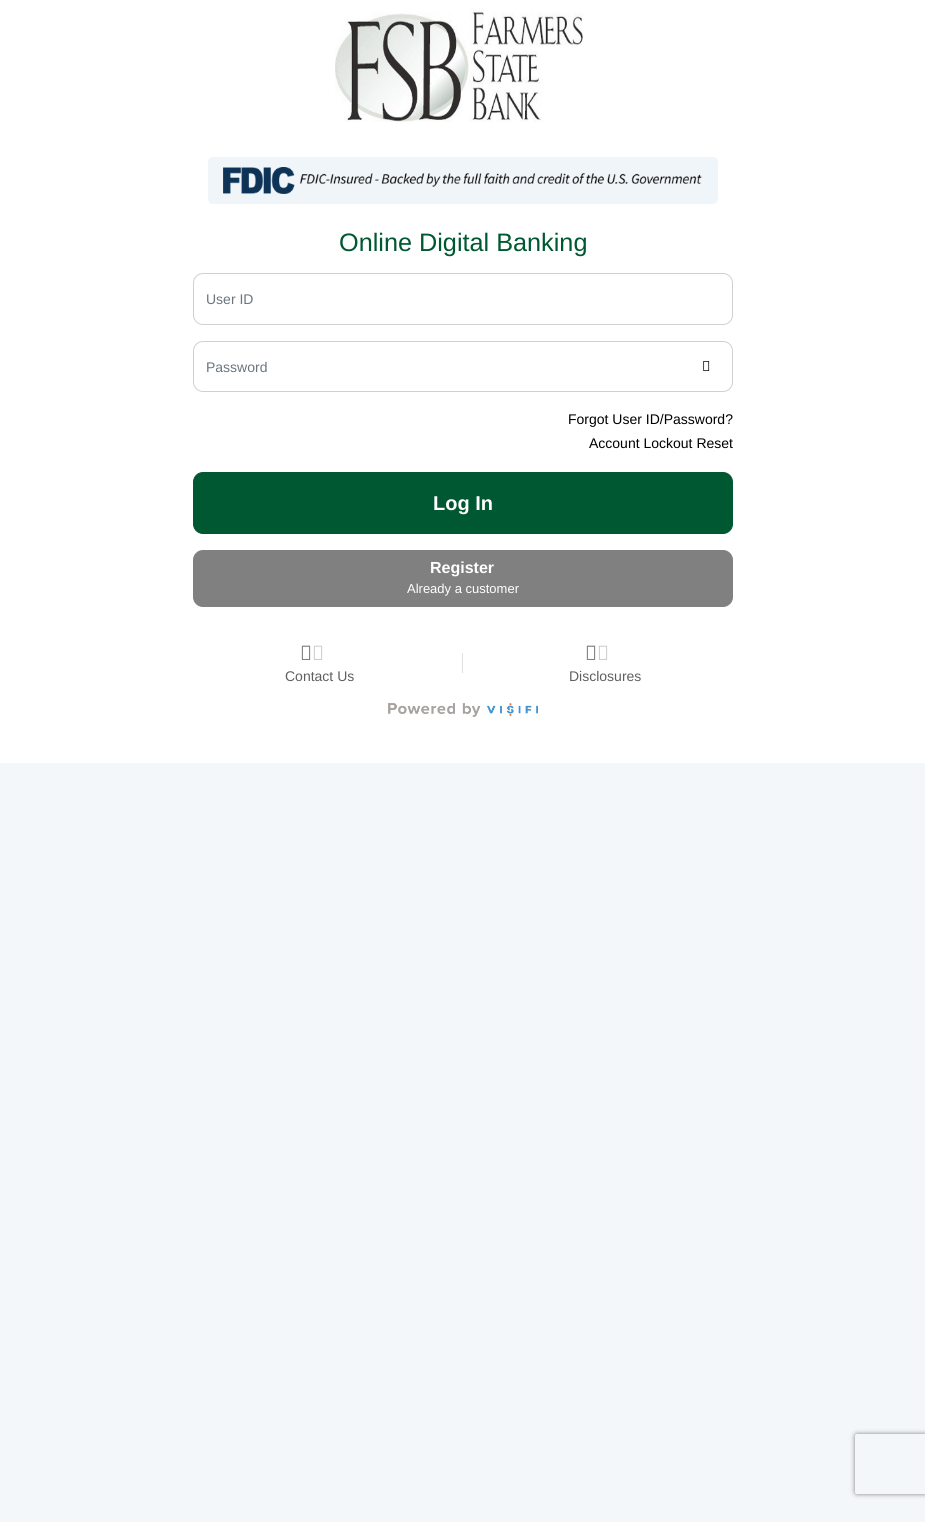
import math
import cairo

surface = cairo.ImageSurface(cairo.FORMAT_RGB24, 925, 1522)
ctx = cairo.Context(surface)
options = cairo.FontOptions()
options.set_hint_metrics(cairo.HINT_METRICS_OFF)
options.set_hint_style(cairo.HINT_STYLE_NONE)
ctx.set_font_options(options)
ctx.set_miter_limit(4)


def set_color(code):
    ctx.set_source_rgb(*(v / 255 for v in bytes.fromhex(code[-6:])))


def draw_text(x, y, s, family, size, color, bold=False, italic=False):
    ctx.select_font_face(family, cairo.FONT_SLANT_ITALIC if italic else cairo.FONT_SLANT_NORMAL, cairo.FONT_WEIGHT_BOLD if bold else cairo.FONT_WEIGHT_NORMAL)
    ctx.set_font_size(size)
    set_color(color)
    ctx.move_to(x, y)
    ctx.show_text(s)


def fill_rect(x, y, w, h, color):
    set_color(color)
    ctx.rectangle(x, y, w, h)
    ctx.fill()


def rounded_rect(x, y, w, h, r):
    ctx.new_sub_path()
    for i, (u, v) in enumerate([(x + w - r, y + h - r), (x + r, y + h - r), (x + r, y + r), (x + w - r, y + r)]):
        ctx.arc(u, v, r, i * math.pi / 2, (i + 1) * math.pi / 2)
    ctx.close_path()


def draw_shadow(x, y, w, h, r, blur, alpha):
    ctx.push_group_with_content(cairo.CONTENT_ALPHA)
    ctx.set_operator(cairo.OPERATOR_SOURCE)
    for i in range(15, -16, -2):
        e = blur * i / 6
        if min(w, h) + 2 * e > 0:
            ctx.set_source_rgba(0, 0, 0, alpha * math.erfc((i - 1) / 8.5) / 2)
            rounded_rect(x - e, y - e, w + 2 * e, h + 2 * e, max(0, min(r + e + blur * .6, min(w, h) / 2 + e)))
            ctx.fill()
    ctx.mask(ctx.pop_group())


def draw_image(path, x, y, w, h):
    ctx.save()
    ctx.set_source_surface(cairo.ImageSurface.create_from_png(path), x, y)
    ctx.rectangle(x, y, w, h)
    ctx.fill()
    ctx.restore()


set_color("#f4f7f9")
ctx.paint()
fill_rect(0, 0, 925, 763, "#ffffff")
draw_image("assets/img1.png", 335, 8, 248, 114)
set_color("#f0f5f9")
rounded_rect(208, 157, 510, 47, 5)
ctx.fill()
draw_image("assets/img2.png", 223, 167, 479, 27)
draw_text(339, 251, "Online Digital Banking", "Liberation Sans", 25.25, "#005832")
rounded_rect(193.5, 273.5, 539, 51, 9.5)
set_color("#d0d0d0")
ctx.set_line_width(1)
ctx.stroke()
draw_text(206, 304, "User ID", "Liberation Sans", 14, "#6c757d")
rounded_rect(193.5, 341.5, 539, 50, 9.5)
set_color("#d0d0d0")
ctx.stroke()
draw_text(206, 372, "Password", "Liberation Sans", 14, "#6c757d")
draw_image("assets/img3.png", 703, 361, 7, 10)
draw_text(568, 424, "Forgot User ID/Password?", "Liberation Sans", 14, "#000000")
draw_text(589, 448, "Account Lockout Reset", "Liberation Sans", 14, "#000000")
set_color("#005832")
rounded_rect(193.5, 472.5, 539, 61, 9.5)
ctx.fill_preserve()
ctx.stroke()
draw_text(433, 510, "Log In", "Liberation Sans", 20, "#ffffff", bold=True)
set_color("#808080")
rounded_rect(193.5, 550.5, 539, 56, 9.5)
ctx.fill_preserve()
ctx.stroke()
draw_text(430, 573, "Register", "Liberation Sans", 16, "#ffffff", bold=True)
draw_text(407, 593, "Already a customer", "Liberation Sans", 13, "#ffffff")
fill_rect(462, 653, 1, 20, "#e0e0e0")
draw_image("assets/img4.png", 301, 645, 10, 15)
draw_image("assets/img5.png", 301, 645, 22, 15)
draw_text(285, 681, "Contact Us", "Liberation Sans", 14, "#5f5f5f")
draw_image("assets/img4.png", 586, 645, 10, 15)
draw_image("assets/img5.png", 586, 645, 22, 15)
draw_text(569, 681, "Disclosures", "Liberation Sans", 14, "#5f5f5f")
draw_image("assets/img6.png", 388, 703, 150, 14)
ctx.save()
ctx.set_fill_rule(cairo.FILL_RULE_EVEN_ODD)
ctx.new_path()
ctx.move_to(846, 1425)
ctx.line_to(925, 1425)
ctx.line_to(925, 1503)
ctx.line_to(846, 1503)
ctx.close_path()
ctx.move_to(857, 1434)
ctx.line_to(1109, 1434)
ctx.curve_to(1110, 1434, 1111, 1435, 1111, 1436)
ctx.line_to(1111, 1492)
ctx.curve_to(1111, 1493, 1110, 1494, 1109, 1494)
ctx.line_to(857, 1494)
ctx.curve_to(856, 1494, 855, 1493, 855, 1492)
ctx.line_to(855, 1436)
ctx.curve_to(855, 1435, 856, 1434, 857, 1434)
ctx.close_path()
ctx.clip()
set_color("#808080")
draw_shadow(855, 1434, 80, 60, 2, 2.5, 1)
ctx.restore()
surface.write_to_png("output.png")
